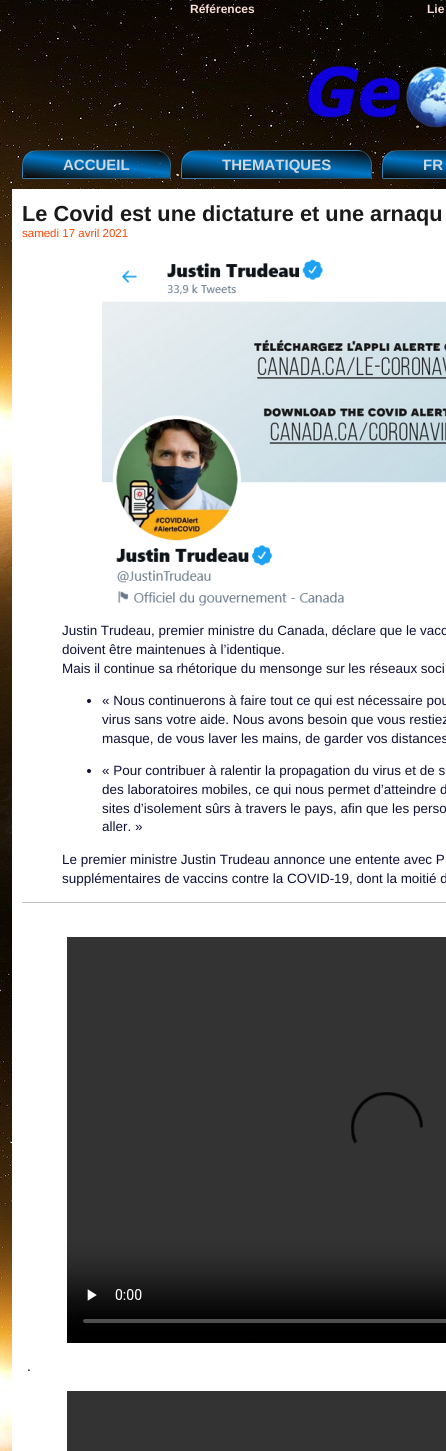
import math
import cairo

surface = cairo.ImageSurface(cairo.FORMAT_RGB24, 446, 1451)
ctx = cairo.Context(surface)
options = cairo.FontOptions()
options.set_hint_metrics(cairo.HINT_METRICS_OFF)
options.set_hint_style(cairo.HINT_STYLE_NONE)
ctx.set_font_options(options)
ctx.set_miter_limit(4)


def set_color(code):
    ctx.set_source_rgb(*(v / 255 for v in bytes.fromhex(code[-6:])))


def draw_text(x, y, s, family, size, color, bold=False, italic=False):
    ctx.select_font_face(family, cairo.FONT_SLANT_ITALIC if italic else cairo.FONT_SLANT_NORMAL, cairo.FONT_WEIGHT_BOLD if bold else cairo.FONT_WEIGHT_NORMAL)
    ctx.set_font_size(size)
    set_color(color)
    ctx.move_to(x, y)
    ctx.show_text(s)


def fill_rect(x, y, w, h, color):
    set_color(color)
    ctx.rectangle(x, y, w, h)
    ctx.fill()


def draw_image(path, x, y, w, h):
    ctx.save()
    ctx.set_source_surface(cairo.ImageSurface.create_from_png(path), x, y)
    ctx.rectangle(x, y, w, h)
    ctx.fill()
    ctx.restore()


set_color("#ffffff")
ctx.paint()
draw_image("assets/img1.png", 0, 0, 446, 1451)
draw_text(190, 13, "Références", "Liberation Sans", 12, "#f7ded3", bold=True)
draw_text(427, 13, "Lie", "Liberation Sans", 12, "#f7ded3", bold=True)
draw_image("assets/img2.png", 307, 63, 139, 65)
ctx.set_source_rgba(0, 0, 0, 0.71)
ctx.new_path()
ctx.move_to(37, 150)
ctx.line_to(156, 150)
ctx.curve_to(164.5, 150, 171, 156.5, 171, 165)
ctx.line_to(171, 179)
ctx.line_to(22, 179)
ctx.line_to(22, 165)
ctx.curve_to(22, 156.5, 28.5, 150, 37, 150)
ctx.close_path()
ctx.fill()
ctx.save()
ctx.new_path()
ctx.move_to(37, 150)
ctx.line_to(156, 150)
ctx.curve_to(164.5, 150, 171, 156.5, 171, 165)
ctx.line_to(171, 179)
ctx.line_to(22, 179)
ctx.line_to(22, 165)
ctx.curve_to(22, 156.5, 28.5, 150, 37, 150)
ctx.close_path()
ctx.clip()
gradient = cairo.LinearGradient(94, 158, 99, 117)
gradient.add_color_stop_rgba(0, 0, 0.463, 0.78, 0)
gradient.add_color_stop_rgba(0.5, 0, 0.463, 0.78, 1)
gradient.add_color_stop_rgba(1, 0, 0.463, 0.78, 0)
ctx.set_source(gradient)
ctx.rectangle(36, 150, 125, 1)
ctx.fill()
gradient = cairo.LinearGradient(-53, 185, -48, 144)
gradient.add_color_stop_rgba(0, 0, 0.463, 0.78, 0)
gradient.add_color_stop_rgba(0.5, 0, 0.463, 0.78, 1)
gradient.add_color_stop_rgba(1, 0, 0.463, 0.78, 0)
ctx.set_source(gradient)
ctx.rectangle(22, 160, 1, 18)
ctx.fill()
gradient = cairo.LinearGradient(94, 185, 99, 144)
gradient.add_color_stop_rgba(0, 0, 0.463, 0.78, 0)
gradient.add_color_stop_rgba(0.5, 0, 0.463, 0.78, 1)
gradient.add_color_stop_rgba(1, 0, 0.463, 0.78, 0)
ctx.set_source(gradient)
ctx.rectangle(23, 151, 147, 27)
ctx.fill()
gradient = cairo.LinearGradient(241, 185, 246, 144)
gradient.add_color_stop_rgba(0, 0, 0.463, 0.78, 0)
gradient.add_color_stop_rgba(0.5, 0, 0.463, 0.78, 1)
gradient.add_color_stop_rgba(1, 0, 0.463, 0.78, 0)
ctx.set_source(gradient)
ctx.rectangle(170, 160, 1, 18)
ctx.fill()
ctx.restore()
gradient = cairo.LinearGradient(94, 212, 99, 171)
gradient.add_color_stop_rgba(0, 0, 0.463, 0.78, 0)
gradient.add_color_stop_rgba(0.5, 0, 0.463, 0.78, 1)
gradient.add_color_stop_rgba(1, 0, 0.463, 0.78, 0)
ctx.set_source(gradient)
ctx.rectangle(23, 178, 134, 1)
ctx.fill()
gradient = cairo.LinearGradient(241, 212, 246, 171)
gradient.add_color_stop_rgba(0, 0.039, 0.02, 0, 1)
gradient.add_color_stop_rgba(0.5, 0, 0.463, 0.78, 1)
gradient.add_color_stop_rgba(1, 0.039, 0.02, 0, 1)
ctx.set_source(gradient)
ctx.rectangle(170, 178, 1, 1)
ctx.fill()
ctx.new_path()
ctx.move_to(37, 150.5)
ctx.line_to(156, 150.5)
ctx.curve_to(164, 150.5, 170.5, 157, 170.5, 165)
ctx.line_to(170.5, 178.5)
ctx.line_to(22.5, 178.5)
ctx.line_to(22.5, 165)
ctx.curve_to(22.5, 157, 29, 150.5, 37, 150.5)
ctx.close_path()
ctx.set_source_rgba(1, 1, 1, 0.2)
ctx.set_line_width(1)
ctx.stroke()
draw_text(63, 170, "ACCUEIL", "Liberation Sans", 15, "#cbd6dd", bold=True)
ctx.set_source_rgba(0, 0, 0, 0.71)
ctx.new_path()
ctx.move_to(196, 150)
ctx.line_to(357, 150)
ctx.curve_to(365.5, 150, 372, 156.5, 372, 165)
ctx.line_to(372, 179)
ctx.line_to(181, 179)
ctx.line_to(181, 165)
ctx.curve_to(181, 156.5, 187.5, 150, 196, 150)
ctx.close_path()
ctx.fill()
ctx.save()
ctx.new_path()
ctx.move_to(196, 150)
ctx.line_to(357, 150)
ctx.curve_to(365.5, 150, 372, 156.5, 372, 165)
ctx.line_to(372, 179)
ctx.line_to(181, 179)
ctx.line_to(181, 165)
ctx.curve_to(181, 156.5, 187.5, 150, 196, 150)
ctx.close_path()
ctx.clip()
gradient = cairo.LinearGradient(274, 161, 279, 114)
gradient.add_color_stop_rgba(0, 0, 0.463, 0.78, 0)
gradient.add_color_stop_rgba(0.5, 0, 0.463, 0.78, 1)
gradient.add_color_stop_rgba(1, 0, 0.463, 0.78, 0)
ctx.set_source(gradient)
ctx.rectangle(192, 150, 170, 1)
ctx.fill()
gradient = cairo.LinearGradient(85, 188, 90, 141)
gradient.add_color_stop_rgba(0, 0, 0.463, 0.78, 0)
gradient.add_color_stop_rgba(0.5, 0, 0.463, 0.78, 1)
gradient.add_color_stop_rgba(1, 0, 0.463, 0.78, 0)
ctx.set_source(gradient)
ctx.rectangle(181, 160, 1, 18)
ctx.fill()
gradient = cairo.LinearGradient(274, 188, 279, 141)
gradient.add_color_stop_rgba(0, 0, 0.463, 0.78, 0)
gradient.add_color_stop_rgba(0.5, 0, 0.463, 0.78, 1)
gradient.add_color_stop_rgba(1, 0, 0.463, 0.78, 0)
ctx.set_source(gradient)
ctx.rectangle(182, 151, 189, 27)
ctx.fill()
gradient = cairo.LinearGradient(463, 188, 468, 141)
gradient.add_color_stop_rgba(0, 0, 0.463, 0.78, 0)
gradient.add_color_stop_rgba(0.5, 0, 0.463, 0.78, 1)
gradient.add_color_stop_rgba(1, 0, 0.463, 0.78, 0)
ctx.set_source(gradient)
ctx.rectangle(371, 160, 1, 18)
ctx.fill()
ctx.restore()
gradient = cairo.LinearGradient(85, 215, 90, 168)
gradient.add_color_stop_rgba(0, 0.047, 0.027, 0.012, 1)
gradient.add_color_stop_rgba(0.5, 0, 0.463, 0.78, 1)
gradient.add_color_stop_rgba(1, 0.047, 0.027, 0.012, 1)
ctx.set_source(gradient)
ctx.rectangle(181, 178, 1, 1)
ctx.fill()
gradient = cairo.LinearGradient(274, 215, 279, 168)
gradient.add_color_stop_rgba(0, 0, 0.463, 0.78, 0)
gradient.add_color_stop_rgba(0.5, 0, 0.463, 0.78, 1)
gradient.add_color_stop_rgba(1, 0, 0.463, 0.78, 0)
ctx.set_source(gradient)
ctx.rectangle(182, 178, 189, 1)
ctx.fill()
gradient = cairo.LinearGradient(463, 215, 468, 168)
gradient.add_color_stop_rgba(0, 0.039, 0.024, 0.004, 1)
gradient.add_color_stop_rgba(0.5, 0, 0.463, 0.78, 1)
gradient.add_color_stop_rgba(1, 0.039, 0.024, 0.004, 1)
ctx.set_source(gradient)
ctx.rectangle(371, 178, 1, 1)
ctx.fill()
ctx.new_path()
ctx.move_to(196, 150.5)
ctx.line_to(357, 150.5)
ctx.curve_to(365, 150.5, 371.5, 157, 371.5, 165)
ctx.line_to(371.5, 178.5)
ctx.line_to(181.5, 178.5)
ctx.line_to(181.5, 165)
ctx.curve_to(181.5, 157, 188, 150.5, 196, 150.5)
ctx.close_path()
ctx.set_source_rgba(1, 1, 1, 0.2)
ctx.stroke()
draw_text(222, 170, "THEMATIQUES", "Liberation Sans", 15, "#cbd6dd", bold=True)
ctx.set_source_rgba(0, 0, 0, 0.71)
ctx.new_path()
ctx.move_to(397, 150)
ctx.line_to(446, 150)
ctx.curve_to(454.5, 150, 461, 156.5, 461, 165)
ctx.line_to(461, 179)
ctx.line_to(382, 179)
ctx.line_to(382, 165)
ctx.curve_to(382, 156.5, 388.5, 150, 397, 150)
ctx.close_path()
ctx.fill()
ctx.save()
ctx.new_path()
ctx.move_to(397, 150)
ctx.line_to(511, 150)
ctx.curve_to(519.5, 150, 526, 156.5, 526, 165)
ctx.line_to(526, 179)
ctx.line_to(382, 179)
ctx.line_to(382, 165)
ctx.curve_to(382, 156.5, 388.5, 150, 397, 150)
ctx.close_path()
ctx.clip()
gradient = cairo.LinearGradient(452, 158, 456, 117)
gradient.add_color_stop_rgba(0, 0, 0.463, 0.78, 0)
gradient.add_color_stop_rgba(0.5, 0, 0.463, 0.78, 1)
gradient.add_color_stop_rgba(1, 0, 0.463, 0.78, 0)
ctx.set_source(gradient)
ctx.rectangle(392, 150, 54, 1)
ctx.fill()
gradient = cairo.LinearGradient(310, 185, 314, 144)
gradient.add_color_stop_rgba(0, 0, 0.463, 0.78, 0)
gradient.add_color_stop_rgba(0.5, 0, 0.463, 0.78, 1)
gradient.add_color_stop_rgba(1, 0, 0.463, 0.78, 0)
ctx.set_source(gradient)
ctx.rectangle(382, 160, 1, 18)
ctx.fill()
gradient = cairo.LinearGradient(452, 185, 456, 144)
gradient.add_color_stop_rgba(0, 0, 0.463, 0.78, 0)
gradient.add_color_stop_rgba(0.5, 0, 0.463, 0.78, 1)
gradient.add_color_stop_rgba(1, 0, 0.463, 0.78, 0)
ctx.set_source(gradient)
ctx.rectangle(383, 151, 63, 27)
ctx.fill()
ctx.restore()
gradient = cairo.LinearGradient(310, 212, 314, 171)
gradient.add_color_stop_rgba(0, 0.039, 0.024, 0.004, 1)
gradient.add_color_stop_rgba(0.5, 0, 0.463, 0.78, 1)
gradient.add_color_stop_rgba(1, 0.039, 0.024, 0.004, 1)
ctx.set_source(gradient)
ctx.rectangle(382, 178, 1, 1)
ctx.fill()
gradient = cairo.LinearGradient(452, 212, 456, 171)
gradient.add_color_stop_rgba(0, 0, 0.463, 0.78, 0)
gradient.add_color_stop_rgba(0.5, 0, 0.463, 0.78, 1)
gradient.add_color_stop_rgba(1, 0, 0.463, 0.78, 0)
ctx.set_source(gradient)
ctx.rectangle(383, 178, 63, 1)
ctx.fill()
ctx.new_path()
ctx.move_to(397, 150.5)
ctx.line_to(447, 150.5)
ctx.curve_to(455, 150.5, 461.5, 157, 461.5, 165)
ctx.line_to(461.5, 178.5)
ctx.line_to(382.5, 178.5)
ctx.line_to(382.5, 165)
ctx.curve_to(382.5, 157, 389, 150.5, 397, 150.5)
ctx.close_path()
ctx.set_source_rgba(1, 1, 1, 0.2)
ctx.stroke()
draw_text(423, 170, "FR", "Liberation Sans", 15, "#cbd6dd", bold=True)
fill_rect(12, 189, 434, 1262, "#ffffff")
draw_text(22, 221, "Le Covid est une dictature et une arnaqu", "Liberation Sans", 21.75, "#1a1a1a", bold=True)
draw_text(22, 237, "samedi 17 avril 2021", "Liberation Sans", 11.5, "#ff4400")
fill_rect(22, 902, 424, 1, "#c1bebe")
draw_image("assets/img3.png", 102, 259, 344, 347)
draw_text(62, 635, "Justin Trudeau, premier ministre du Canada, déclare que le vacc", "Liberation Sans", 13.45, "#0e0f37")
draw_text(62, 654, "doivent être maintenues à l’identique.", "Liberation Sans", 13.45, "#0e0f37")
draw_text(62, 673, "Mais il continue sa rhétorique du mensonge sur les réseaux soci", "Liberation Sans", 13.45, "#0e0f37")
ctx.new_path()
ctx.arc(89, 701, 2, 0, 2 * math.pi)
ctx.fill()
draw_text(102, 705, "« Nous continuerons à faire tout ce qui est nécessaire pou", "Liberation Sans", 13.45, "#0e0f37")
draw_text(102, 724, "virus sans votre aide. Nous avons besoin que vous restiez", "Liberation Sans", 13.45, "#0e0f37")
draw_text(102, 743, "masque, de vous laver les mains, de garder vos distances", "Liberation Sans", 13.45, "#0e0f37")
ctx.new_path()
ctx.arc(89, 771, 2, 0, 2 * math.pi)
ctx.fill()
draw_text(102, 775, "« Pour contribuer à ralentir la propagation du virus et de s", "Liberation Sans", 13.45, "#0e0f37")
draw_text(102, 794, "des laboratoires mobiles, ce qui nous permet d’atteindre d", "Liberation Sans", 13.45, "#0e0f37")
draw_text(102, 813, "sites d’isolement sûrs à travers le pays, afin que les perso", "Liberation Sans", 13.45, "#0e0f37")
draw_text(102, 831, "aller. »", "Liberation Sans", 13.45, "#0e0f37")
draw_text(62, 864, "Le premier ministre Justin Trudeau annonce une entente avec P", "Liberation Sans", 13.45, "#0e0f37")
draw_text(62, 883, "supplémentaires de vaccins contre la COVID-19, dont la moitié d", "Liberation Sans", 13.45, "#0e0f37")
draw_image("assets/img4.png", 67, 937, 379, 406)
draw_text(27, 1371, ".", "Liberation Sans", 14, "#000000")
fill_rect(67, 1391, 379, 60, "#333333")
surface.write_to_png("output.png")
